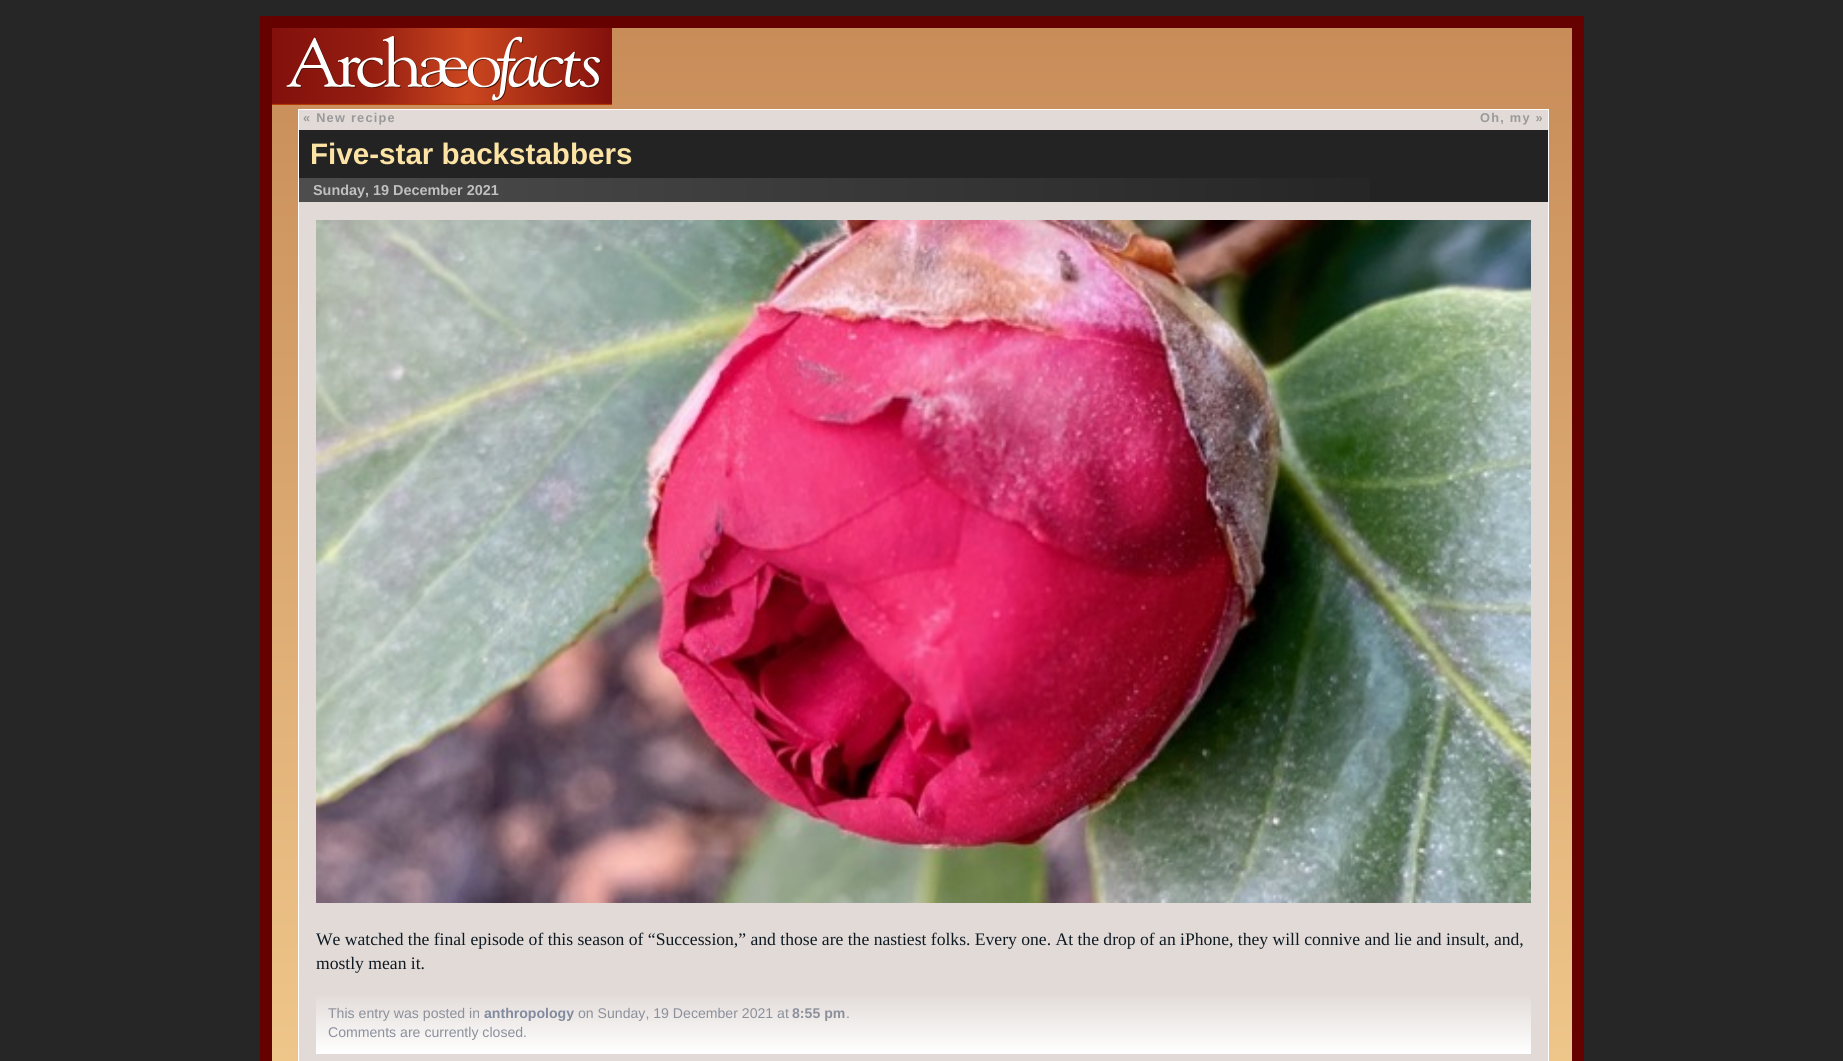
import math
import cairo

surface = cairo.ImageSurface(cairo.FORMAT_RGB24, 1843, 1061)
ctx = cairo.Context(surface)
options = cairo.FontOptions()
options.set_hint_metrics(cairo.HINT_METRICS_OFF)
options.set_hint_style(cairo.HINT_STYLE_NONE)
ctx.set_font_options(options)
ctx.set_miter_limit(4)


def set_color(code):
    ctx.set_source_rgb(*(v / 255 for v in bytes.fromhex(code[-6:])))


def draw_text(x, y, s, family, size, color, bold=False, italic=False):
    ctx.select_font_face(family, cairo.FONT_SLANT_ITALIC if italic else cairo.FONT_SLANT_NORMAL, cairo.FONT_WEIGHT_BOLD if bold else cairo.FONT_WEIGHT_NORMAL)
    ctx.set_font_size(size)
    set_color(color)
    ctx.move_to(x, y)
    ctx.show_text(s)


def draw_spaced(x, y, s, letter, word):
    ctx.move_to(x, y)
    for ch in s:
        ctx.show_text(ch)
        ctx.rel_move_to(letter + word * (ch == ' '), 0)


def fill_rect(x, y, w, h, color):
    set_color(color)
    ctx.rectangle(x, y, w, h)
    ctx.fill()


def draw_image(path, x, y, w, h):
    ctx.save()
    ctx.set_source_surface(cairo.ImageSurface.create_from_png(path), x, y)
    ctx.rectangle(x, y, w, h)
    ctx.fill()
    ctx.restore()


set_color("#262626")
ctx.paint()
gradient = cairo.LinearGradient(922, 28, 922, 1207)
gradient.add_color_stop_rgba(0, 0.784, 0.549, 0.349, 1)
gradient.add_color_stop_rgba(1, 0.957, 0.808, 0.569, 1)
ctx.set_source(gradient)
ctx.rectangle(272, 28, 1300, 1033)
ctx.fill()
ctx.rectangle(266, 22, 1312, 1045)
set_color("#650200")
ctx.set_line_width(12)
ctx.stroke()
draw_image("assets/img1.png", 272, 28, 340, 77)
set_color("#e1dad7")
ctx.rectangle(298.5, 109.5, 1250, 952)
ctx.fill_preserve()
set_color("#ffffff")
ctx.set_line_width(1)
ctx.stroke()
ctx.select_font_face("Liberation Sans", cairo.FONT_SLANT_NORMAL, cairo.FONT_WEIGHT_BOLD)
ctx.set_font_size(12.75)
set_color("#999999")
draw_spaced(303, 122, "« New recipe", 1.25, 0)
draw_spaced(1480, 122, "Oh, my »", 1.25, 0)
fill_rect(299, 130, 1249, 72, "#232323")
draw_text(310, 164, "Five-star backstabbers", "Liberation Sans", 29.6, "#fde4a5", bold=True)
gradient = cairo.LinearGradient(1438, 190, 299, 190)
gradient.add_color_stop_rgba(0, 0.137, 0.137, 0.137, 1)
gradient.add_color_stop_rgba(1, 0.302, 0.302, 0.302, 1)
ctx.set_source(gradient)
ctx.rectangle(299, 178, 1071, 24)
ctx.fill()
draw_text(313, 195, "Sunday, 19 December 2021", "Liberation Sans", 14.4, "#c0c0c0", bold=True)
draw_image("assets/img2.png", 316, 220, 1215, 683)
draw_text(316, 945, "We watched the final episode of this season of “Succession,” and those are the nastiest folks. Every one. At the drop of an iPhone, they will connive and lie and insult, and,", "Liberation Serif", 17.6, "#0e1921")
draw_text(316, 969, "mostly mean it.", "Liberation Serif", 17.6, "#0e1921")
gradient = cairo.LinearGradient(924, 992, 924, 1053)
gradient.add_color_stop_rgba(0, 0.882, 0.855, 0.843, 1)
gradient.add_color_stop_rgba(1, 1, 1, 1, 1)
ctx.set_source(gradient)
ctx.rectangle(316, 996, 1215, 57)
ctx.fill()
fill_rect(316, 1053, 1215, 1, "#ffffff")
draw_text(328, 1018, "This entry was posted in", "Liberation Sans", 14.1, "#8b909b")
draw_text(484, 1018, "anthropology", "Liberation Sans", 14.1, "#818a9e", bold=True)
draw_text(578, 1018, "on Sunday, 19 December 2021 at", "Liberation Sans", 14.1, "#8b909b")
draw_text(792, 1018, "8:55 pm", "Liberation Sans", 14.1, "#8b909b", bold=True)
draw_text(846, 1018, ".", "Liberation Sans", 14.1, "#8b909b")
draw_text(328, 1037, "Comments are currently closed.", "Liberation Sans", 14.1, "#8b909b")
surface.write_to_png("output.png")
